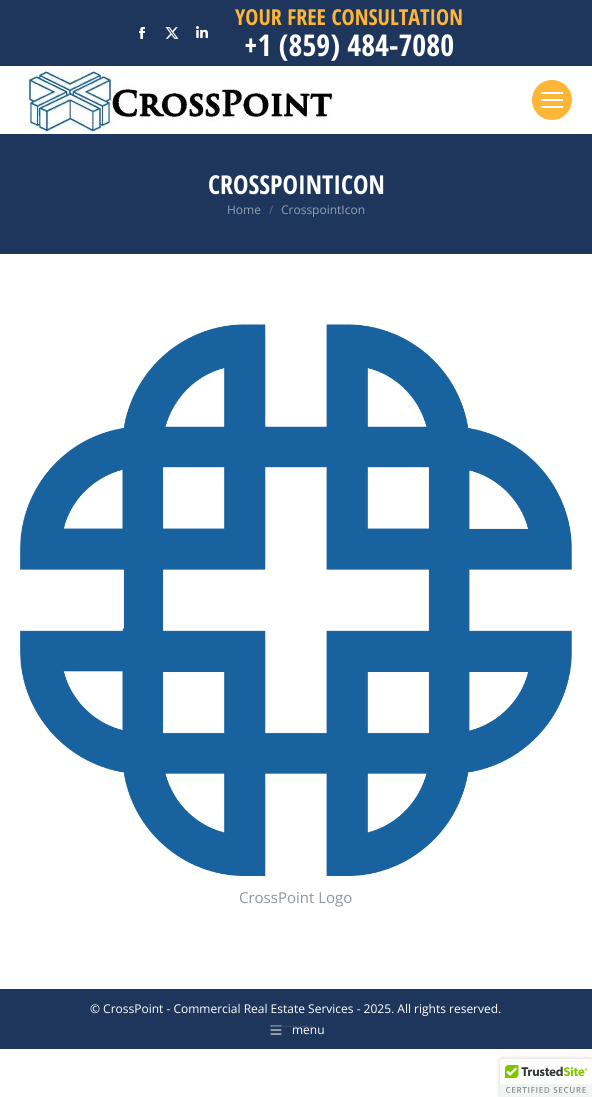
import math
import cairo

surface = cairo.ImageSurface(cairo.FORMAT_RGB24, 592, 1097)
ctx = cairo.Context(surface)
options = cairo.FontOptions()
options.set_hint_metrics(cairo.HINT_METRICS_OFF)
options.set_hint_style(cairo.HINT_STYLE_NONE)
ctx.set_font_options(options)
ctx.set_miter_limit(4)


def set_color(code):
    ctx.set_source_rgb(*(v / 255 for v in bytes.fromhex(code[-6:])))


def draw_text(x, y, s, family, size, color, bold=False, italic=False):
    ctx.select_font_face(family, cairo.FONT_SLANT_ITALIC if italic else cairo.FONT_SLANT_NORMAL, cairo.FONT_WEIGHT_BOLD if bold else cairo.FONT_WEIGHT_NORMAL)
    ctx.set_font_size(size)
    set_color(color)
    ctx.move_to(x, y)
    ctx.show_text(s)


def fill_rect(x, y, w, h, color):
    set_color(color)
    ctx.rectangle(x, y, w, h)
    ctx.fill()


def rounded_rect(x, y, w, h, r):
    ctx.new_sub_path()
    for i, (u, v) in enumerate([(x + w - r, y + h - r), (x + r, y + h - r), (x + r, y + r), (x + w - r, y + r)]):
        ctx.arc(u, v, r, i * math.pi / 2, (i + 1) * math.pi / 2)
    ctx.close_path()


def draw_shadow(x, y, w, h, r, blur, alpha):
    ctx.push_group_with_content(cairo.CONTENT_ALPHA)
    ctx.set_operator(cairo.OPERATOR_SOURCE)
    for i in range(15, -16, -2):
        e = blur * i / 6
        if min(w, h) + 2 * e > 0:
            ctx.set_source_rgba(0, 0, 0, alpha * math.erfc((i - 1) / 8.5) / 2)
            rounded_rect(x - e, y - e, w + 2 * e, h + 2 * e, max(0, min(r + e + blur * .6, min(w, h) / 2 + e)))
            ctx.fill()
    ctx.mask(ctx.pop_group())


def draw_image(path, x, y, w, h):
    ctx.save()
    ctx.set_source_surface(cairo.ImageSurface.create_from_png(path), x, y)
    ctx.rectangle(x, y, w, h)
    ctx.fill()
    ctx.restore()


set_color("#ffffff")
ctx.paint()
fill_rect(0, 0, 592, 66, "#1f365c")
draw_image("assets/img1.png", 139, 27, 6, 12)
draw_image("assets/img2.png", 165, 27, 14, 12)
draw_image("assets/img3.png", 196, 26, 12, 12)
draw_text(235, 25, "YOUR FREE CONSULTATION", "Open Sans Condensed", 22, "#ffb536", bold=True)
draw_text(244, 56, "+1 (859) 484-7080", "Open Sans Condensed", 30, "#ffffff", bold=True)
draw_image("assets/img4.png", 20, 66, 313, 68)
set_color("#ffb536")
ctx.arc(552, 100, 20, 0, 2 * math.pi)
ctx.fill()
fill_rect(541, 92, 22, 2, "#ffffff")
fill_rect(541, 99, 22, 2, "#ffffff")
fill_rect(541, 106, 22, 2, "#ffffff")
fill_rect(0, 134, 592, 120, "#1f365c")
draw_text(208, 194, "CROSSPOINTICON", "Open Sans Condensed", 26, "#ffffff", bold=True)
draw_text(227, 214, "Home", "Open Sans", 12, "#949fb2")
draw_text(269, 214, "/", "Open Sans", 12, "#5a6b87")
draw_text(281, 214, "CrosspointIcon", "Open Sans", 12, "#949fb2")
draw_image("assets/img5.png", 20, 324, 552, 552)
draw_text(239, 903, "CrossPoint Logo", "Open Sans", 15, "#8c95a2")
fill_rect(0, 989, 592, 60, "#1f365c")
draw_text(90, 1013, "© CrossPoint - Commercial Real Estate Services - 2025. All rights reserved.", "Open Sans", 12, "#ffffff")
draw_image("assets/img6.png", 270, 1025, 12, 10)
draw_text(271, 1030, "———", "Open Sans", 14, "#3b4f70")
draw_text(292, 1034, "menu", "Open Sans", 12, "#ffffff")
set_color("#000000")
draw_shadow(500, 1059, 92, 38, 2, 2.5, 0.2)
set_color("#ffffff")
ctx.new_path()
ctx.move_to(502, 1059)
ctx.line_to(592, 1059)
ctx.line_to(592, 1097)
ctx.line_to(500, 1097)
ctx.line_to(500, 1061)
ctx.curve_to(500, 1060, 501, 1059, 502, 1059)
ctx.close_path()
ctx.fill()
draw_image("assets/img7.png", 500, 1059, 92, 38)
surface.write_to_png("output.png")
